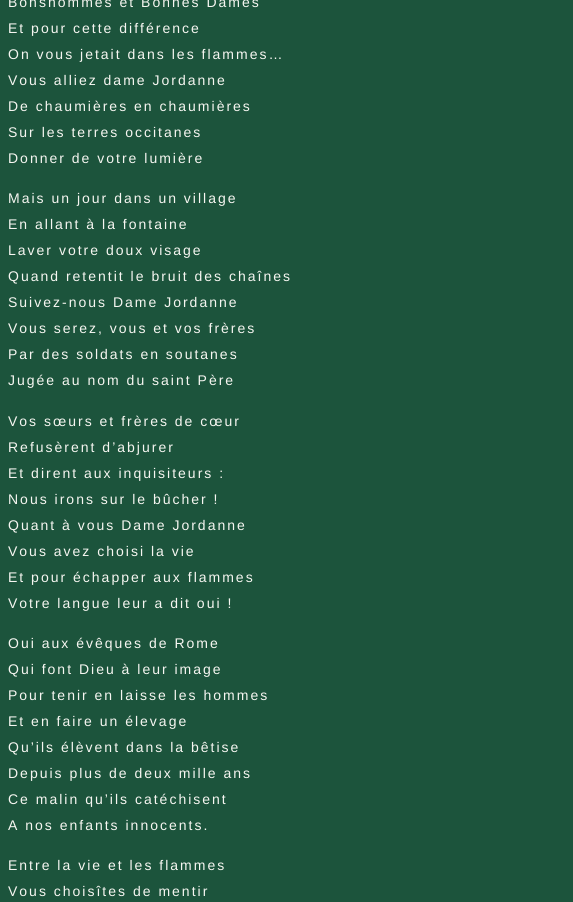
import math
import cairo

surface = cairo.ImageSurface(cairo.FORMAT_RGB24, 573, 902)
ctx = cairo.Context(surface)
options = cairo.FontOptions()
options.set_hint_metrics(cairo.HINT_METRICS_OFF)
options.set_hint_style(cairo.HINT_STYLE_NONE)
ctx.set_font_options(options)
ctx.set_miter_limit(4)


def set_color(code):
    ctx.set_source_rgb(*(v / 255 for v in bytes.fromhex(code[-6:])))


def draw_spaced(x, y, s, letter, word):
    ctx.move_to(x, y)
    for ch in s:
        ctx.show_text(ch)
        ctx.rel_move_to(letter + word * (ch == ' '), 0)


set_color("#1c543c")
ctx.paint()
ctx.select_font_face("Liberation Sans")
ctx.set_font_size(14)
set_color("#f6f6f1")
draw_spaced(8, 7, "Bonshommes et Bonnes Dames", 2, 0)
draw_spaced(8, 33, "Et pour cette différence", 2, 0)
draw_spaced(8, 59, "On vous jetait dans les flammes…", 2, 0)
draw_spaced(8, 85, "Vous alliez dame Jordanne", 2, 0)
draw_spaced(8, 111, "De chaumières en chaumières", 2, 0)
draw_spaced(8, 137, "Sur les terres occitanes", 2, 0)
draw_spaced(8, 163, "Donner de votre lumière", 2, 0)
draw_spaced(8, 203, "Mais un jour dans un village", 2, 0)
draw_spaced(8, 229, "En allant à la fontaine", 2, 0)
draw_spaced(8, 255, "Laver votre doux visage", 2, 0)
draw_spaced(8, 281, "Quand retentit le bruit des chaînes", 2, 0)
draw_spaced(8, 307, "Suivez-nous Dame Jordanne", 2, 0)
draw_spaced(8, 333, "Vous serez, vous et vos frères", 2, 0)
draw_spaced(8, 359, "Par des soldats en soutanes", 2, 0)
draw_spaced(8, 385, "Jugée au nom du saint Père", 2, 0)
draw_spaced(8, 426, "Vos sœurs et frères de cœur", 2, 0)
draw_spaced(8, 452, "Refusèrent d’abjurer", 2, 0)
draw_spaced(8, 478, "Et dirent aux inquisiteurs :", 2, 0)
draw_spaced(8, 504, "Nous irons sur le bûcher !", 2, 0)
draw_spaced(8, 530, "Quant à vous Dame Jordanne", 2, 0)
draw_spaced(8, 556, "Vous avez choisi la vie", 2, 0)
draw_spaced(8, 582, "Et pour échapper aux flammes", 2, 0)
draw_spaced(8, 608, "Votre langue leur a dit oui !", 2, 0)
draw_spaced(8, 648, "Oui aux évêques de Rome", 2, 0)
draw_spaced(8, 674, "Qui font Dieu à leur image", 2, 0)
draw_spaced(8, 700, "Pour tenir en laisse les hommes", 2, 0)
draw_spaced(8, 726, "Et en faire un élevage", 2, 0)
draw_spaced(8, 752, "Qu’ils élèvent dans la bêtise", 2, 0)
draw_spaced(8, 778, "Depuis plus de deux mille ans", 2, 0)
draw_spaced(8, 804, "Ce malin qu’ils catéchisent", 2, 0)
draw_spaced(8, 830, "A nos enfants innocents.", 2, 0)
draw_spaced(8, 870, "Entre la vie et les flammes", 2, 0)
draw_spaced(8, 896, "Vous choisîtes de mentir", 2, 0)
surface.write_to_png("output.png")
